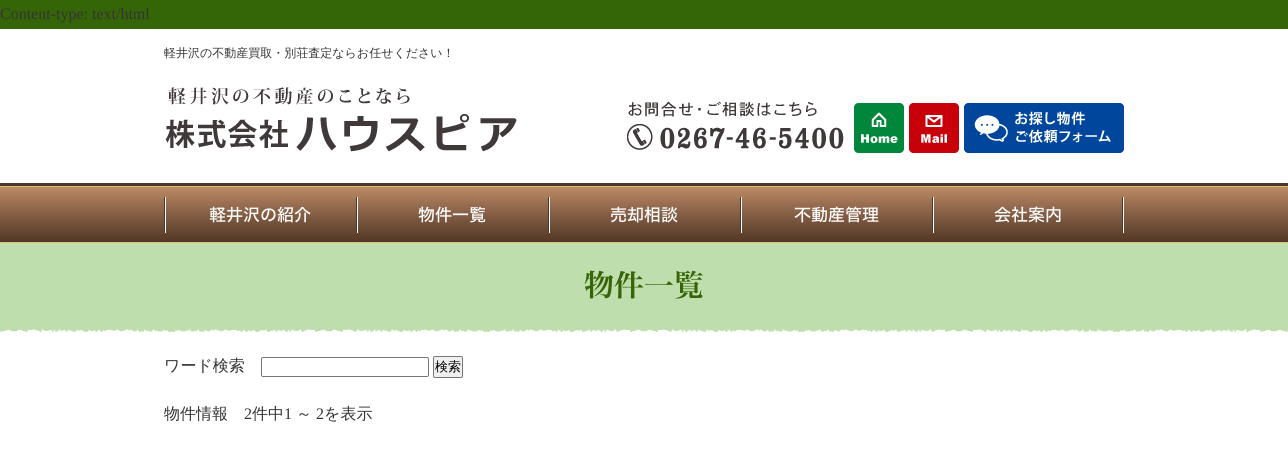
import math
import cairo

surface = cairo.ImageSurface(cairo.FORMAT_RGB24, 1288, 462)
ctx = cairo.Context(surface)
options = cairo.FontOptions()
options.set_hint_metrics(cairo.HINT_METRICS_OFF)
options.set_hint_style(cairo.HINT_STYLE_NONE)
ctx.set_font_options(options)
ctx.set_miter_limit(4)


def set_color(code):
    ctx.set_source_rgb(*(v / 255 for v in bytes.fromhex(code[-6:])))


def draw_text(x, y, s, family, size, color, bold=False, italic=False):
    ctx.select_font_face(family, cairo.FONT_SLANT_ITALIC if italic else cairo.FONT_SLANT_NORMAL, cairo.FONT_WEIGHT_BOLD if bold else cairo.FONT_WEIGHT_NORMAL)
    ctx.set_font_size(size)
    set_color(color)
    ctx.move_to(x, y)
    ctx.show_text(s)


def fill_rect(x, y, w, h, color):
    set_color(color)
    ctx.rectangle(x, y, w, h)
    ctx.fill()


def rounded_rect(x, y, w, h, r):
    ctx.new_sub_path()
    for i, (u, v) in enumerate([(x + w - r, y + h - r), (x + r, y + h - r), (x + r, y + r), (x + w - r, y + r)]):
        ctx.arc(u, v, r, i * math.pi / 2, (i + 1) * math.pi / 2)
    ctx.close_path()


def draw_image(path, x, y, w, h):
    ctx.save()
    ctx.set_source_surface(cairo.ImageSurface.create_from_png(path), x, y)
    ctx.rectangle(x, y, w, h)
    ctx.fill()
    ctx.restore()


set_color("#346607")
ctx.paint()
draw_text(0, 19, "Content-type: text/html", "Liberation Serif", 16, "#333333")
fill_rect(0, 29, 1288, 154, "#ffffff")
draw_text(164, 57, "軽井沢の不動産買取・別荘査定ならお任せください！", "WenQuanYi Zen Hei Medium", 12, "#333333")
draw_image("assets/img1.png", 165, 87, 679, 65)
draw_image("assets/img2.png", 854, 103, 50, 50)
draw_image("assets/img3.png", 909, 103, 50, 50)
draw_image("assets/img4.png", 964, 103, 160, 50)
draw_image("assets/img5.png", 0, 183, 1288, 60)
draw_image("assets/img6.png", 164, 197, 2, 36)
draw_text(209, 221, "軽井沢の紹介", "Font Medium", 17, "#ffffff")
draw_image("assets/img6.png", 356, 197, 2, 36)
draw_text(418, 221, "物件一覧", "Font Medium", 17, "#ffffff")
draw_image("assets/img6.png", 548, 197, 2, 36)
draw_text(610, 221, "売却相談", "Font Medium", 17, "#ffffff")
draw_image("assets/img6.png", 740, 197, 2, 36)
draw_text(794, 221, "不動産管理", "Font Medium", 17, "#ffffff")
draw_image("assets/img7.png", 932, 197, 192, 36)
draw_text(994, 221, "会社案内", "Font Medium", 17, "#ffffff")
fill_rect(0, 329, 1288, 133, "#ffffff")
draw_image("assets/img8.png", 0, 243, 1288, 89)
draw_text(584, 296, "物件一覧", "Font SemiBold", 30, "#356507")
draw_text(164, 371, "ワード検索", "WenQuanYi Zen Hei Medium", 16, "#333333")
rounded_rect(261.5, 357.5, 167, 19, 1.5)
set_color("#767676")
ctx.set_line_width(1)
ctx.stroke()
set_color("#efefef")
rounded_rect(433.5, 356.5, 29, 21, 1.5)
ctx.fill_preserve()
set_color("#767676")
ctx.stroke()
draw_text(435, 371, "検索", "WenQuanYi Zen Hei Medium", 13, "#000000")
draw_text(164, 419, "物件情報", "WenQuanYi Zen Hei Medium", 16, "#333333")
draw_text(244, 419, "2", "Liberation Serif", 16, "#333333")
draw_text(252, 419, "件中", "WenQuanYi Zen Hei Medium", 16, "#333333")
draw_text(284, 419, "1", "Liberation Serif", 16, "#333333")
draw_text(296, 419, "～", "WenQuanYi Zen Hei Medium", 16, "#333333")
draw_text(316, 419, "2", "Liberation Serif", 16, "#333333")
draw_text(324, 419, "を表示", "WenQuanYi Zen Hei Medium", 16, "#333333")
surface.write_to_png("output.png")
